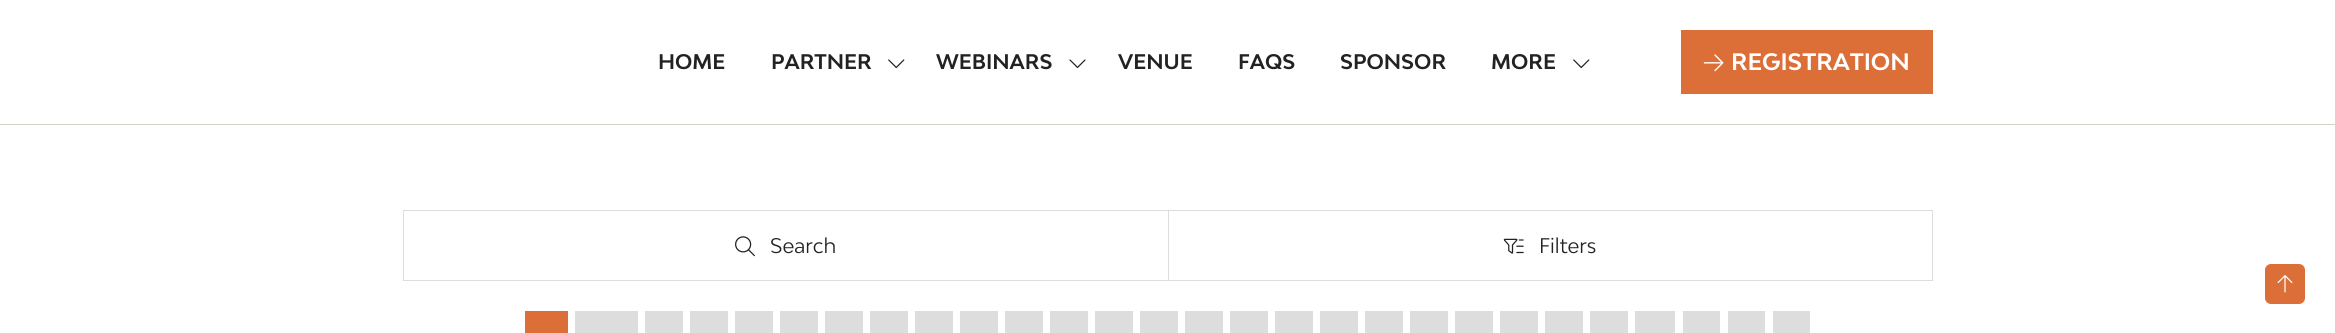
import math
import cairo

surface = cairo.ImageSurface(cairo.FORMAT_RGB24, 2335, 333)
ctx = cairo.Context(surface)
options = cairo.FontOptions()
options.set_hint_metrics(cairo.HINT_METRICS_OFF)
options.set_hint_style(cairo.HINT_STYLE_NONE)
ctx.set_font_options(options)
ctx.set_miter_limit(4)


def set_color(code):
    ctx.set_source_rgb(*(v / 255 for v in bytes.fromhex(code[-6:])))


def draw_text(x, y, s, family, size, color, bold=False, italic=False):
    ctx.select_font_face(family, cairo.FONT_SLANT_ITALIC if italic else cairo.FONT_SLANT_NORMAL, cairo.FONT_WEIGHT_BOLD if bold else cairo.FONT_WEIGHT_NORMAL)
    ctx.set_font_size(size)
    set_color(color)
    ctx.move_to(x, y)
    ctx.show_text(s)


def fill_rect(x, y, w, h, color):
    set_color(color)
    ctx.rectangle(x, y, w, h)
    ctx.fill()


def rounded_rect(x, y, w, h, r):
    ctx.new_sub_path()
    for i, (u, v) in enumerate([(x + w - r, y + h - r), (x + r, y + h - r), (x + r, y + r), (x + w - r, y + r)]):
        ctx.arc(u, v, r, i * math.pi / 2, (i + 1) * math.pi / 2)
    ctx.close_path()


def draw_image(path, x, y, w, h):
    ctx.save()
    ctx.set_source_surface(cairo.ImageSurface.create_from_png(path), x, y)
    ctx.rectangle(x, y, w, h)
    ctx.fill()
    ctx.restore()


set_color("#ffffff")
ctx.paint()
fill_rect(0, 124, 2335, 1, "#d6d1c7")
draw_text(658, 69, "HOME", "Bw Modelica", 20, "#222222", bold=True)
draw_text(771, 69, "PARTNER", "Bw Modelica", 20, "#222222", bold=True)
draw_image("assets/img1.png", 888, 59, 17, 10)
draw_text(936, 69, "WEBINARS", "Bw Modelica", 20, "#222222", bold=True)
draw_image("assets/img2.png", 1069, 59, 17, 10)
draw_text(1118, 69, "VENUE", "Bw Modelica", 20, "#222222", bold=True)
draw_text(1238, 69, "FAQS", "Bw Modelica", 20, "#222222", bold=True)
draw_text(1340, 69, "SPONSOR", "Bw Modelica", 20, "#222222", bold=True)
draw_text(1491, 69, "MORE", "Bw Modelica", 20, "#222222", bold=True)
draw_image("assets/img1.png", 1573, 59, 17, 10)
fill_rect(1681, 30, 252, 64, "#dc6e37")
draw_image("assets/img3.png", 1703, 54, 21, 18)
draw_text(1731, 70, "REGISTRATION", "Bw Modelica", 22.5, "#ffffff", bold=True)
ctx.rectangle(403.5, 210.5, 1529, 70)
set_color("#dddddd")
ctx.set_line_width(1)
ctx.stroke()
draw_image("assets/img4.png", 735, 236, 20, 21)
draw_text(770, 253, "Search", "Bw Modelica", 20, "#222222")
fill_rect(1168, 211, 1, 69, "#dddddd")
draw_image("assets/img5.png", 1503, 238, 21, 16)
draw_text(1539, 253, "Filters", "Bw Modelica", 20, "#222222")
fill_rect(525, 311, 43, 22, "#dc6e37")
fill_rect(575, 311, 63, 22, "#dddddd")
fill_rect(645, 311, 38, 22, "#dddddd")
fill_rect(690, 311, 38, 22, "#dddddd")
fill_rect(735, 311, 38, 22, "#dddddd")
fill_rect(780, 311, 38, 22, "#dddddd")
fill_rect(825, 311, 38, 22, "#dddddd")
fill_rect(870, 311, 38, 22, "#dddddd")
fill_rect(915, 311, 38, 22, "#dddddd")
fill_rect(960, 311, 38, 22, "#dddddd")
fill_rect(1005, 311, 38, 22, "#dddddd")
fill_rect(1050, 311, 38, 22, "#dddddd")
fill_rect(1095, 311, 38, 22, "#dddddd")
fill_rect(1140, 311, 38, 22, "#dddddd")
fill_rect(1185, 311, 38, 22, "#dddddd")
fill_rect(1230, 311, 38, 22, "#dddddd")
fill_rect(1275, 311, 38, 22, "#dddddd")
fill_rect(1320, 311, 38, 22, "#dddddd")
fill_rect(1365, 311, 38, 22, "#dddddd")
fill_rect(1410, 311, 38, 22, "#dddddd")
fill_rect(1455, 311, 38, 22, "#dddddd")
fill_rect(1500, 311, 38, 22, "#dddddd")
fill_rect(1545, 311, 38, 22, "#dddddd")
fill_rect(1590, 311, 38, 22, "#dddddd")
fill_rect(1635, 311, 40, 22, "#dddddd")
fill_rect(1683, 311, 37, 22, "#dddddd")
fill_rect(1728, 311, 37, 22, "#dddddd")
fill_rect(1773, 311, 37, 22, "#dddddd")
set_color("#dc6e37")
rounded_rect(2265, 264, 40, 40, 6)
ctx.fill()
draw_image("assets/img6.png", 2277, 275, 16, 18)
surface.write_to_png("output.png")
